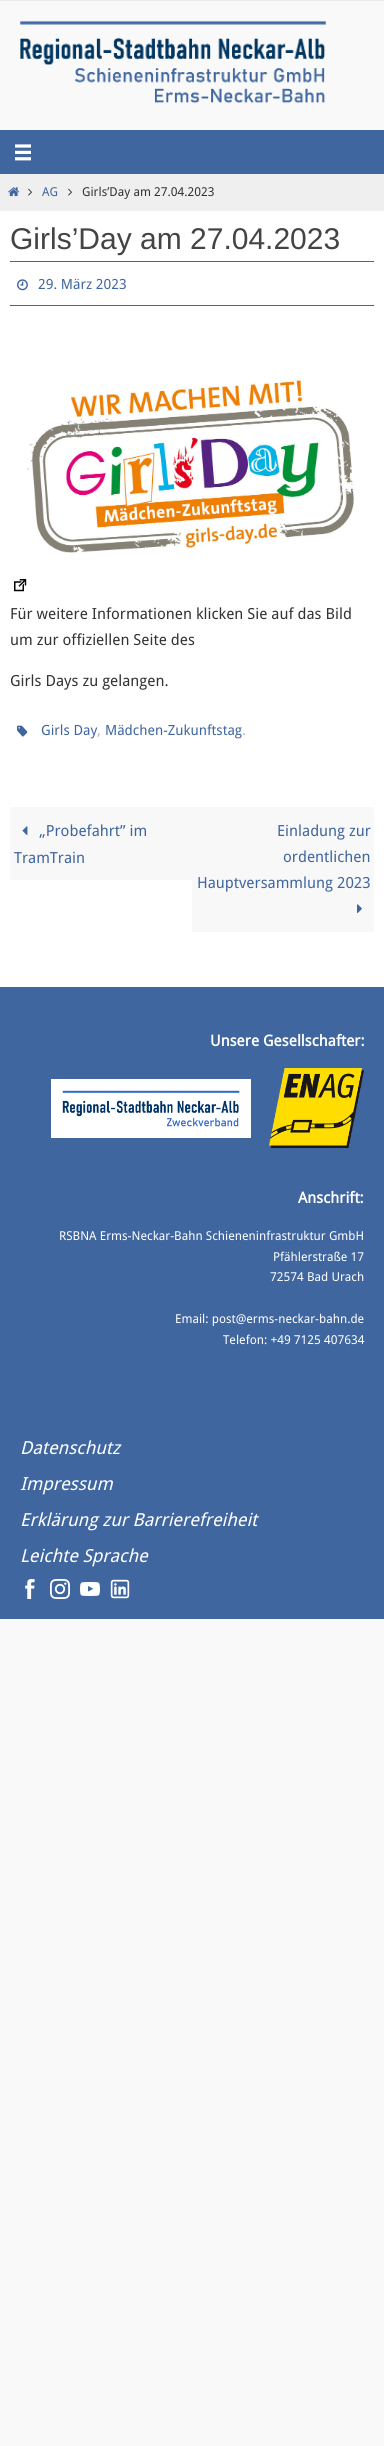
import math
import cairo

surface = cairo.ImageSurface(cairo.FORMAT_RGB24, 384, 2446)
ctx = cairo.Context(surface)
options = cairo.FontOptions()
options.set_hint_metrics(cairo.HINT_METRICS_OFF)
options.set_hint_style(cairo.HINT_STYLE_NONE)
ctx.set_font_options(options)
ctx.set_miter_limit(4)


def set_color(code):
    ctx.set_source_rgb(*(v / 255 for v in bytes.fromhex(code[-6:])))


def draw_text(x, y, s, family, size, color, bold=False, italic=False):
    ctx.select_font_face(family, cairo.FONT_SLANT_ITALIC if italic else cairo.FONT_SLANT_NORMAL, cairo.FONT_WEIGHT_BOLD if bold else cairo.FONT_WEIGHT_NORMAL)
    ctx.set_font_size(size)
    set_color(color)
    ctx.move_to(x, y)
    ctx.show_text(s)


def fill_rect(x, y, w, h, color):
    set_color(color)
    ctx.rectangle(x, y, w, h)
    ctx.fill()


def draw_image(path, x, y, w, h):
    ctx.save()
    ctx.set_source_surface(cairo.ImageSurface.create_from_png(path), x, y)
    ctx.rectangle(x, y, w, h)
    ctx.fill()
    ctx.restore()


set_color("#f9f9f9")
ctx.paint()
fill_rect(0, 0, 384, 1, "#ebebeb")
draw_image("assets/img1.png", 20, 20, 307, 84)
fill_rect(0, 130, 384, 44, "#4066a0")
draw_image("assets/img2.png", 15, 144, 16, 17)
fill_rect(0, 174, 384, 37, "#efefef")
draw_image("assets/img3.png", 8, 187, 12, 10)
draw_image("assets/img4.png", 28, 188, 4, 8)
draw_text(42, 196, "AG", "Droid Sans", 12.25, "#4066a0")
draw_image("assets/img4.png", 68, 188, 4, 8)
draw_text(82, 196, "Girls’Day am 27.04.2023", "Droid Sans", 12.25, "#333333")
fill_rect(0, 211, 384, 776, "#ffffff")
draw_text(10, 249, "Girls’Day am 27.04.2023", "Liberation Sans", 30, "#444444")
fill_rect(10, 261, 364, 1, "#4066a0")
fill_rect(10, 305, 364, 1, "#4066a0")
draw_image("assets/img5.png", 17, 279, 11, 12)
draw_text(38, 289, "29. März 2023", "Droid Sans", 14, "#4066a0")
draw_image("assets/img6.png", 27, 379, 328, 174)
draw_image("assets/img7.png", 14, 579, 13, 13)
draw_text(10, 619, "Für weitere Informationen klicken Sie auf das Bild", "Droid Sans", 15.3, "#333333")
draw_text(10, 645, "um zur offiziellen Seite des", "Droid Sans", 15.3, "#333333")
draw_text(10, 686, "Girls Days zu gelangen.", "Droid Sans", 15.3, "#333333")
draw_image("assets/img8.png", 17, 725, 11, 12)
draw_text(41, 735, "Girls Day", "Droid Sans", 14, "#4066a0")
draw_text(97, 735, ",", "Droid Sans", 16, "#c1c1c1")
draw_text(105, 735, "Mädchen-Zukunftstag", "Droid Sans", 14, "#4066a0")
draw_text(242, 735, ".", "Droid Sans", 16, "#c1c1c1")
fill_rect(10, 807, 182, 73, "#f8f8f8")
draw_image("assets/img9.png", 22, 826, 6, 9)
draw_text(39, 836, "„Probefahrt” im", "Droid Sans", 15.3, "#4066a0")
draw_text(14, 863, "TramTrain", "Droid Sans", 15.3, "#4066a0")
fill_rect(192, 807, 182, 125, "#f8f8f8")
draw_text(277, 836, "Einladung zur", "Droid Sans", 15.3, "#4066a0")
draw_text(283, 862, "ordentlichen", "Droid Sans", 15.3, "#4066a0")
draw_text(197, 888, "Hauptversammlung 2023", "Droid Sans", 15.3, "#4066a0")
draw_image("assets/img10.png", 357, 904, 5, 9)
fill_rect(0, 987, 384, 632, "#4066a0")
draw_text(210, 1046, "Unsere Gesellschafter:", "Droid Sans", 15.3, "#ffffff", bold=True)
draw_image("assets/img11.png", 51, 1079, 200, 59)
draw_image("assets/img12.png", 269, 1068, 95, 80)
draw_text(298, 1203, "Anschrift:", "Droid Sans", 15.3, "#ffffff", bold=True)
draw_text(59, 1240, "RSBNA Erms-Neckar-Bahn Schieneninfrastruktur GmbH", "Droid Sans", 12.25, "#ffffff")
draw_text(273, 1261, "Pfählerstraße 17", "Droid Sans", 12.25, "#ffffff")
draw_text(270, 1281, "72574 Bad Urach", "Droid Sans", 12.25, "#ffffff")
draw_text(175, 1323, "Email: post@erms-neckar-bahn.de", "Droid Sans", 12.25, "#ffffff")
draw_text(223, 1344, "Telefon: +49 7125 407634", "Droid Sans", 12.25, "#ffffff")
draw_text(20, 1454, "Datenschutz", "Droid Sans", 18, "#ffffff", italic=True)
draw_text(20, 1490, "Impressum", "Droid Sans", 18, "#ffffff", italic=True)
draw_text(20, 1526, "Erklärung zur Barrierefreiheit", "Droid Sans", 18, "#ffffff", italic=True)
draw_text(20, 1562, "Leichte Sprache", "Droid Sans", 18, "#ffffff", italic=True)
draw_image("assets/img13.png", 25, 1579, 10, 20)
draw_image("assets/img14.png", 50, 1579, 20, 20)
draw_image("assets/img15.png", 80, 1582, 20, 14)
draw_image("assets/img16.png", 110, 1579, 20, 20)
surface.write_to_png("output.png")
